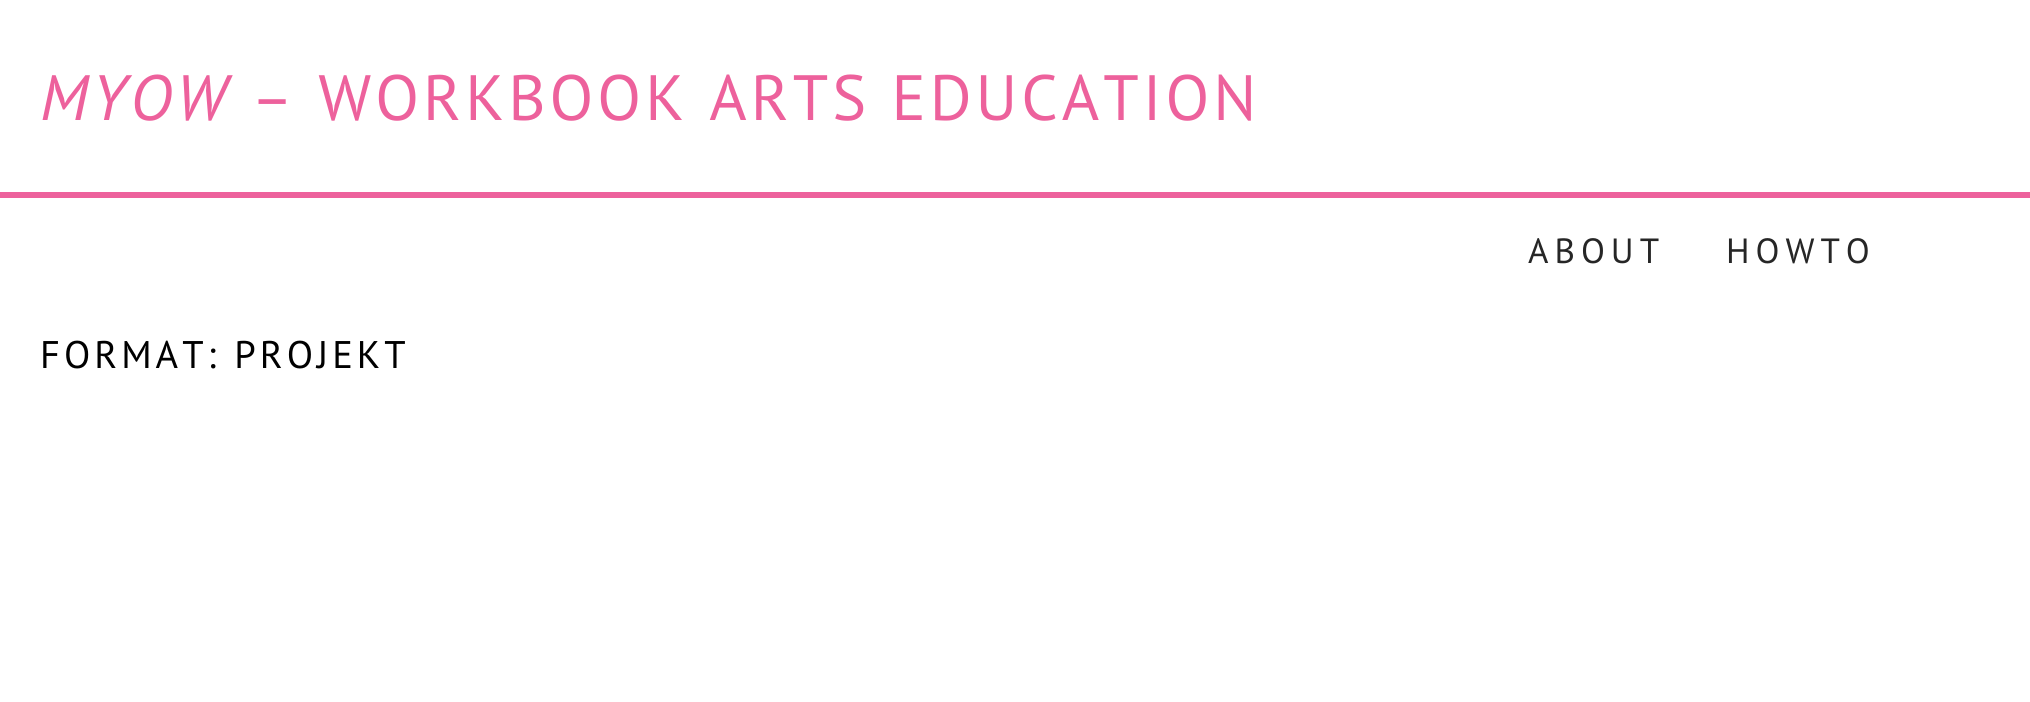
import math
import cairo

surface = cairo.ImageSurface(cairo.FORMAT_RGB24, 2030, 702)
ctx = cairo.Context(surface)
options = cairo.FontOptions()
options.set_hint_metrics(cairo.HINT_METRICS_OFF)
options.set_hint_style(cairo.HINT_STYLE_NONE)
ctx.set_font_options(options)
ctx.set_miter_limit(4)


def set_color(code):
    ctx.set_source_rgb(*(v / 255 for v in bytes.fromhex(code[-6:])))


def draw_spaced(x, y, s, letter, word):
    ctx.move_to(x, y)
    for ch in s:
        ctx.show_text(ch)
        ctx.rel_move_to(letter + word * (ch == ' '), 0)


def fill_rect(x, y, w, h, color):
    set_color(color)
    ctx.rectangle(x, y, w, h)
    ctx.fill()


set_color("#ffffff")
ctx.paint()
fill_rect(0, 192, 2030, 6, "#ed619c")
ctx.select_font_face("PT Sans", cairo.FONT_SLANT_ITALIC)
ctx.set_font_size(64)
draw_spaced(40, 120, "MYOW", 4, 0)
ctx.select_font_face("PT Sans")
draw_spaced(251, 120, "– WORKBOOK ARTS EDUCATION", 4, 0)
ctx.set_font_size(35)
set_color("#262626")
draw_spaced(1528, 263, "ABOUT", 6, 0)
draw_spaced(1726, 263, "HOWTO", 6, 0)
ctx.set_font_size(38.5)
set_color("#000000")
draw_spaced(40, 368, "FORMAT: PROJEKT", 4, 0)
surface.write_to_png("output.png")
